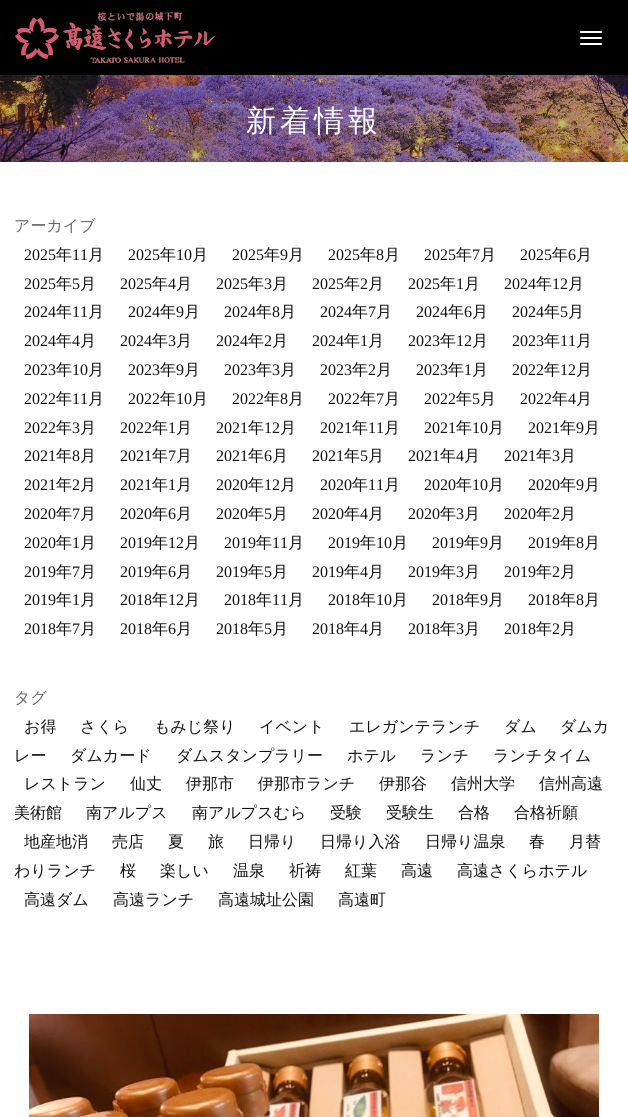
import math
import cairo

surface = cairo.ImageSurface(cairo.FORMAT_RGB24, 628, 1117)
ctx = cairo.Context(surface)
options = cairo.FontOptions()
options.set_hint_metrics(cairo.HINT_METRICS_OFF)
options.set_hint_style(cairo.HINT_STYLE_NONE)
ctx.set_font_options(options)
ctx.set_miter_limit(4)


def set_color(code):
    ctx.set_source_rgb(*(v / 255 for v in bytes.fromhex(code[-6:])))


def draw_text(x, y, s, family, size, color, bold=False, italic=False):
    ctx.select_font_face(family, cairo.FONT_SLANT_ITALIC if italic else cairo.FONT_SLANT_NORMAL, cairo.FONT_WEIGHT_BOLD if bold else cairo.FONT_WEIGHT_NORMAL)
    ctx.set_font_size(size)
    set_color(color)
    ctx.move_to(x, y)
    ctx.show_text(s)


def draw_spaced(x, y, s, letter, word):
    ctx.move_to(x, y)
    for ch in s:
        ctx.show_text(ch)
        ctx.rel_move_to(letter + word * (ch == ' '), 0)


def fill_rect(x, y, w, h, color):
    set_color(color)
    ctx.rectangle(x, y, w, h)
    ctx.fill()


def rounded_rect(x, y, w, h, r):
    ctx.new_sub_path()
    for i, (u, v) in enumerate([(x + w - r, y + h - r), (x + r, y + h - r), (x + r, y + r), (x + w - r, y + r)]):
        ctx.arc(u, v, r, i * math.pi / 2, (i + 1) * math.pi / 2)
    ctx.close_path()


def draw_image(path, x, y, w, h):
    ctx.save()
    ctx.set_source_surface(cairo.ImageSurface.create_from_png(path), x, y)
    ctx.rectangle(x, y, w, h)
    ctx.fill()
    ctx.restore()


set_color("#ffffff")
ctx.paint()
fill_rect(0, 0, 628, 75, "#000000")
draw_image("assets/img1.png", 15, 12, 200, 51)
set_color("#ffffff")
rounded_rect(580, 31, 22, 2, 1)
ctx.fill()
rounded_rect(580, 37, 22, 2, 1)
ctx.fill()
rounded_rect(580, 43, 22, 2, 1)
ctx.fill()
draw_image("assets/img2.png", 0, 75, 628, 87)
ctx.select_font_face("WenQuanYi Zen Hei Medium")
ctx.set_font_size(30)
draw_spaced(246, 131, "新着情報", 4, 0)
draw_text(14, 231, "アーカイブ", "WenQuanYi Zen Hei Medium", 16, "#666666")
draw_text(24, 260, "2025", "Liberation Serif", 16, "#111111")
draw_text(56, 260, "年", "WenQuanYi Zen Hei Medium", 16, "#111111")
draw_text(72, 260, "11", "Liberation Serif", 16, "#111111")
draw_text(88, 260, "月", "WenQuanYi Zen Hei Medium", 16, "#111111")
draw_text(128, 260, "2025", "Liberation Serif", 16, "#111111")
draw_text(160, 260, "年", "WenQuanYi Zen Hei Medium", 16, "#111111")
draw_text(176, 260, "10", "Liberation Serif", 16, "#111111")
draw_text(192, 260, "月", "WenQuanYi Zen Hei Medium", 16, "#111111")
draw_text(232, 260, "2025", "Liberation Serif", 16, "#111111")
draw_text(264, 260, "年", "WenQuanYi Zen Hei Medium", 16, "#111111")
draw_text(280, 260, "9", "Liberation Serif", 16, "#111111")
draw_text(288, 260, "月", "WenQuanYi Zen Hei Medium", 16, "#111111")
draw_text(328, 260, "2025", "Liberation Serif", 16, "#111111")
draw_text(360, 260, "年", "WenQuanYi Zen Hei Medium", 16, "#111111")
draw_text(376, 260, "8", "Liberation Serif", 16, "#111111")
draw_text(384, 260, "月", "WenQuanYi Zen Hei Medium", 16, "#111111")
draw_text(424, 260, "2025", "Liberation Serif", 16, "#111111")
draw_text(456, 260, "年", "WenQuanYi Zen Hei Medium", 16, "#111111")
draw_text(472, 260, "7", "Liberation Serif", 16, "#111111")
draw_text(480, 260, "月", "WenQuanYi Zen Hei Medium", 16, "#111111")
draw_text(520, 260, "2025", "Liberation Serif", 16, "#111111")
draw_text(552, 260, "年", "WenQuanYi Zen Hei Medium", 16, "#111111")
draw_text(568, 260, "6", "Liberation Serif", 16, "#111111")
draw_text(576, 260, "月", "WenQuanYi Zen Hei Medium", 16, "#111111")
draw_text(24, 289, "2025", "Liberation Serif", 16, "#111111")
draw_text(56, 289, "年", "WenQuanYi Zen Hei Medium", 16, "#111111")
draw_text(72, 289, "5", "Liberation Serif", 16, "#111111")
draw_text(80, 289, "月", "WenQuanYi Zen Hei Medium", 16, "#111111")
draw_text(120, 289, "2025", "Liberation Serif", 16, "#111111")
draw_text(152, 289, "年", "WenQuanYi Zen Hei Medium", 16, "#111111")
draw_text(168, 289, "4", "Liberation Serif", 16, "#111111")
draw_text(176, 289, "月", "WenQuanYi Zen Hei Medium", 16, "#111111")
draw_text(216, 289, "2025", "Liberation Serif", 16, "#111111")
draw_text(248, 289, "年", "WenQuanYi Zen Hei Medium", 16, "#111111")
draw_text(264, 289, "3", "Liberation Serif", 16, "#111111")
draw_text(272, 289, "月", "WenQuanYi Zen Hei Medium", 16, "#111111")
draw_text(312, 289, "2025", "Liberation Serif", 16, "#111111")
draw_text(344, 289, "年", "WenQuanYi Zen Hei Medium", 16, "#111111")
draw_text(360, 289, "2", "Liberation Serif", 16, "#111111")
draw_text(368, 289, "月", "WenQuanYi Zen Hei Medium", 16, "#111111")
draw_text(408, 289, "2025", "Liberation Serif", 16, "#111111")
draw_text(440, 289, "年", "WenQuanYi Zen Hei Medium", 16, "#111111")
draw_text(456, 289, "1", "Liberation Serif", 16, "#111111")
draw_text(464, 289, "月", "WenQuanYi Zen Hei Medium", 16, "#111111")
draw_text(504, 289, "2024", "Liberation Serif", 16, "#111111")
draw_text(536, 289, "年", "WenQuanYi Zen Hei Medium", 16, "#111111")
draw_text(552, 289, "12", "Liberation Serif", 16, "#111111")
draw_text(568, 289, "月", "WenQuanYi Zen Hei Medium", 16, "#111111")
draw_text(24, 317, "2024", "Liberation Serif", 16, "#111111")
draw_text(56, 317, "年", "WenQuanYi Zen Hei Medium", 16, "#111111")
draw_text(72, 317, "11", "Liberation Serif", 16, "#111111")
draw_text(88, 317, "月", "WenQuanYi Zen Hei Medium", 16, "#111111")
draw_text(128, 317, "2024", "Liberation Serif", 16, "#111111")
draw_text(160, 317, "年", "WenQuanYi Zen Hei Medium", 16, "#111111")
draw_text(176, 317, "9", "Liberation Serif", 16, "#111111")
draw_text(184, 317, "月", "WenQuanYi Zen Hei Medium", 16, "#111111")
draw_text(224, 317, "2024", "Liberation Serif", 16, "#111111")
draw_text(256, 317, "年", "WenQuanYi Zen Hei Medium", 16, "#111111")
draw_text(272, 317, "8", "Liberation Serif", 16, "#111111")
draw_text(280, 317, "月", "WenQuanYi Zen Hei Medium", 16, "#111111")
draw_text(320, 317, "2024", "Liberation Serif", 16, "#111111")
draw_text(352, 317, "年", "WenQuanYi Zen Hei Medium", 16, "#111111")
draw_text(368, 317, "7", "Liberation Serif", 16, "#111111")
draw_text(376, 317, "月", "WenQuanYi Zen Hei Medium", 16, "#111111")
draw_text(416, 317, "2024", "Liberation Serif", 16, "#111111")
draw_text(448, 317, "年", "WenQuanYi Zen Hei Medium", 16, "#111111")
draw_text(464, 317, "6", "Liberation Serif", 16, "#111111")
draw_text(472, 317, "月", "WenQuanYi Zen Hei Medium", 16, "#111111")
draw_text(512, 317, "2024", "Liberation Serif", 16, "#111111")
draw_text(544, 317, "年", "WenQuanYi Zen Hei Medium", 16, "#111111")
draw_text(560, 317, "5", "Liberation Serif", 16, "#111111")
draw_text(568, 317, "月", "WenQuanYi Zen Hei Medium", 16, "#111111")
draw_text(24, 346, "2024", "Liberation Serif", 16, "#111111")
draw_text(56, 346, "年", "WenQuanYi Zen Hei Medium", 16, "#111111")
draw_text(72, 346, "4", "Liberation Serif", 16, "#111111")
draw_text(80, 346, "月", "WenQuanYi Zen Hei Medium", 16, "#111111")
draw_text(120, 346, "2024", "Liberation Serif", 16, "#111111")
draw_text(152, 346, "年", "WenQuanYi Zen Hei Medium", 16, "#111111")
draw_text(168, 346, "3", "Liberation Serif", 16, "#111111")
draw_text(176, 346, "月", "WenQuanYi Zen Hei Medium", 16, "#111111")
draw_text(216, 346, "2024", "Liberation Serif", 16, "#111111")
draw_text(248, 346, "年", "WenQuanYi Zen Hei Medium", 16, "#111111")
draw_text(264, 346, "2", "Liberation Serif", 16, "#111111")
draw_text(272, 346, "月", "WenQuanYi Zen Hei Medium", 16, "#111111")
draw_text(312, 346, "2024", "Liberation Serif", 16, "#111111")
draw_text(344, 346, "年", "WenQuanYi Zen Hei Medium", 16, "#111111")
draw_text(360, 346, "1", "Liberation Serif", 16, "#111111")
draw_text(368, 346, "月", "WenQuanYi Zen Hei Medium", 16, "#111111")
draw_text(408, 346, "2023", "Liberation Serif", 16, "#111111")
draw_text(440, 346, "年", "WenQuanYi Zen Hei Medium", 16, "#111111")
draw_text(456, 346, "12", "Liberation Serif", 16, "#111111")
draw_text(472, 346, "月", "WenQuanYi Zen Hei Medium", 16, "#111111")
draw_text(512, 346, "2023", "Liberation Serif", 16, "#111111")
draw_text(544, 346, "年", "WenQuanYi Zen Hei Medium", 16, "#111111")
draw_text(560, 346, "11", "Liberation Serif", 16, "#111111")
draw_text(576, 346, "月", "WenQuanYi Zen Hei Medium", 16, "#111111")
draw_text(24, 375, "2023", "Liberation Serif", 16, "#111111")
draw_text(56, 375, "年", "WenQuanYi Zen Hei Medium", 16, "#111111")
draw_text(72, 375, "10", "Liberation Serif", 16, "#111111")
draw_text(88, 375, "月", "WenQuanYi Zen Hei Medium", 16, "#111111")
draw_text(128, 375, "2023", "Liberation Serif", 16, "#111111")
draw_text(160, 375, "年", "WenQuanYi Zen Hei Medium", 16, "#111111")
draw_text(176, 375, "9", "Liberation Serif", 16, "#111111")
draw_text(184, 375, "月", "WenQuanYi Zen Hei Medium", 16, "#111111")
draw_text(224, 375, "2023", "Liberation Serif", 16, "#111111")
draw_text(256, 375, "年", "WenQuanYi Zen Hei Medium", 16, "#111111")
draw_text(272, 375, "3", "Liberation Serif", 16, "#111111")
draw_text(280, 375, "月", "WenQuanYi Zen Hei Medium", 16, "#111111")
draw_text(320, 375, "2023", "Liberation Serif", 16, "#111111")
draw_text(352, 375, "年", "WenQuanYi Zen Hei Medium", 16, "#111111")
draw_text(368, 375, "2", "Liberation Serif", 16, "#111111")
draw_text(376, 375, "月", "WenQuanYi Zen Hei Medium", 16, "#111111")
draw_text(416, 375, "2023", "Liberation Serif", 16, "#111111")
draw_text(448, 375, "年", "WenQuanYi Zen Hei Medium", 16, "#111111")
draw_text(464, 375, "1", "Liberation Serif", 16, "#111111")
draw_text(472, 375, "月", "WenQuanYi Zen Hei Medium", 16, "#111111")
draw_text(512, 375, "2022", "Liberation Serif", 16, "#111111")
draw_text(544, 375, "年", "WenQuanYi Zen Hei Medium", 16, "#111111")
draw_text(560, 375, "12", "Liberation Serif", 16, "#111111")
draw_text(576, 375, "月", "WenQuanYi Zen Hei Medium", 16, "#111111")
draw_text(24, 404, "2022", "Liberation Serif", 16, "#111111")
draw_text(56, 404, "年", "WenQuanYi Zen Hei Medium", 16, "#111111")
draw_text(72, 404, "11", "Liberation Serif", 16, "#111111")
draw_text(88, 404, "月", "WenQuanYi Zen Hei Medium", 16, "#111111")
draw_text(128, 404, "2022", "Liberation Serif", 16, "#111111")
draw_text(160, 404, "年", "WenQuanYi Zen Hei Medium", 16, "#111111")
draw_text(176, 404, "10", "Liberation Serif", 16, "#111111")
draw_text(192, 404, "月", "WenQuanYi Zen Hei Medium", 16, "#111111")
draw_text(232, 404, "2022", "Liberation Serif", 16, "#111111")
draw_text(264, 404, "年", "WenQuanYi Zen Hei Medium", 16, "#111111")
draw_text(280, 404, "8", "Liberation Serif", 16, "#111111")
draw_text(288, 404, "月", "WenQuanYi Zen Hei Medium", 16, "#111111")
draw_text(328, 404, "2022", "Liberation Serif", 16, "#111111")
draw_text(360, 404, "年", "WenQuanYi Zen Hei Medium", 16, "#111111")
draw_text(376, 404, "7", "Liberation Serif", 16, "#111111")
draw_text(384, 404, "月", "WenQuanYi Zen Hei Medium", 16, "#111111")
draw_text(424, 404, "2022", "Liberation Serif", 16, "#111111")
draw_text(456, 404, "年", "WenQuanYi Zen Hei Medium", 16, "#111111")
draw_text(472, 404, "5", "Liberation Serif", 16, "#111111")
draw_text(480, 404, "月", "WenQuanYi Zen Hei Medium", 16, "#111111")
draw_text(520, 404, "2022", "Liberation Serif", 16, "#111111")
draw_text(552, 404, "年", "WenQuanYi Zen Hei Medium", 16, "#111111")
draw_text(568, 404, "4", "Liberation Serif", 16, "#111111")
draw_text(576, 404, "月", "WenQuanYi Zen Hei Medium", 16, "#111111")
draw_text(24, 433, "2022", "Liberation Serif", 16, "#111111")
draw_text(56, 433, "年", "WenQuanYi Zen Hei Medium", 16, "#111111")
draw_text(72, 433, "3", "Liberation Serif", 16, "#111111")
draw_text(80, 433, "月", "WenQuanYi Zen Hei Medium", 16, "#111111")
draw_text(120, 433, "2022", "Liberation Serif", 16, "#111111")
draw_text(152, 433, "年", "WenQuanYi Zen Hei Medium", 16, "#111111")
draw_text(168, 433, "1", "Liberation Serif", 16, "#111111")
draw_text(176, 433, "月", "WenQuanYi Zen Hei Medium", 16, "#111111")
draw_text(216, 433, "2021", "Liberation Serif", 16, "#111111")
draw_text(248, 433, "年", "WenQuanYi Zen Hei Medium", 16, "#111111")
draw_text(264, 433, "12", "Liberation Serif", 16, "#111111")
draw_text(280, 433, "月", "WenQuanYi Zen Hei Medium", 16, "#111111")
draw_text(320, 433, "2021", "Liberation Serif", 16, "#111111")
draw_text(352, 433, "年", "WenQuanYi Zen Hei Medium", 16, "#111111")
draw_text(368, 433, "11", "Liberation Serif", 16, "#111111")
draw_text(384, 433, "月", "WenQuanYi Zen Hei Medium", 16, "#111111")
draw_text(424, 433, "2021", "Liberation Serif", 16, "#111111")
draw_text(456, 433, "年", "WenQuanYi Zen Hei Medium", 16, "#111111")
draw_text(472, 433, "10", "Liberation Serif", 16, "#111111")
draw_text(488, 433, "月", "WenQuanYi Zen Hei Medium", 16, "#111111")
draw_text(528, 433, "2021", "Liberation Serif", 16, "#111111")
draw_text(560, 433, "年", "WenQuanYi Zen Hei Medium", 16, "#111111")
draw_text(576, 433, "9", "Liberation Serif", 16, "#111111")
draw_text(584, 433, "月", "WenQuanYi Zen Hei Medium", 16, "#111111")
draw_text(24, 461, "2021", "Liberation Serif", 16, "#111111")
draw_text(56, 461, "年", "WenQuanYi Zen Hei Medium", 16, "#111111")
draw_text(72, 461, "8", "Liberation Serif", 16, "#111111")
draw_text(80, 461, "月", "WenQuanYi Zen Hei Medium", 16, "#111111")
draw_text(120, 461, "2021", "Liberation Serif", 16, "#111111")
draw_text(152, 461, "年", "WenQuanYi Zen Hei Medium", 16, "#111111")
draw_text(168, 461, "7", "Liberation Serif", 16, "#111111")
draw_text(176, 461, "月", "WenQuanYi Zen Hei Medium", 16, "#111111")
draw_text(216, 461, "2021", "Liberation Serif", 16, "#111111")
draw_text(248, 461, "年", "WenQuanYi Zen Hei Medium", 16, "#111111")
draw_text(264, 461, "6", "Liberation Serif", 16, "#111111")
draw_text(272, 461, "月", "WenQuanYi Zen Hei Medium", 16, "#111111")
draw_text(312, 461, "2021", "Liberation Serif", 16, "#111111")
draw_text(344, 461, "年", "WenQuanYi Zen Hei Medium", 16, "#111111")
draw_text(360, 461, "5", "Liberation Serif", 16, "#111111")
draw_text(368, 461, "月", "WenQuanYi Zen Hei Medium", 16, "#111111")
draw_text(408, 461, "2021", "Liberation Serif", 16, "#111111")
draw_text(440, 461, "年", "WenQuanYi Zen Hei Medium", 16, "#111111")
draw_text(456, 461, "4", "Liberation Serif", 16, "#111111")
draw_text(464, 461, "月", "WenQuanYi Zen Hei Medium", 16, "#111111")
draw_text(504, 461, "2021", "Liberation Serif", 16, "#111111")
draw_text(536, 461, "年", "WenQuanYi Zen Hei Medium", 16, "#111111")
draw_text(552, 461, "3", "Liberation Serif", 16, "#111111")
draw_text(560, 461, "月", "WenQuanYi Zen Hei Medium", 16, "#111111")
draw_text(24, 490, "2021", "Liberation Serif", 16, "#111111")
draw_text(56, 490, "年", "WenQuanYi Zen Hei Medium", 16, "#111111")
draw_text(72, 490, "2", "Liberation Serif", 16, "#111111")
draw_text(80, 490, "月", "WenQuanYi Zen Hei Medium", 16, "#111111")
draw_text(120, 490, "2021", "Liberation Serif", 16, "#111111")
draw_text(152, 490, "年", "WenQuanYi Zen Hei Medium", 16, "#111111")
draw_text(168, 490, "1", "Liberation Serif", 16, "#111111")
draw_text(176, 490, "月", "WenQuanYi Zen Hei Medium", 16, "#111111")
draw_text(216, 490, "2020", "Liberation Serif", 16, "#111111")
draw_text(248, 490, "年", "WenQuanYi Zen Hei Medium", 16, "#111111")
draw_text(264, 490, "12", "Liberation Serif", 16, "#111111")
draw_text(280, 490, "月", "WenQuanYi Zen Hei Medium", 16, "#111111")
draw_text(320, 490, "2020", "Liberation Serif", 16, "#111111")
draw_text(352, 490, "年", "WenQuanYi Zen Hei Medium", 16, "#111111")
draw_text(368, 490, "11", "Liberation Serif", 16, "#111111")
draw_text(384, 490, "月", "WenQuanYi Zen Hei Medium", 16, "#111111")
draw_text(424, 490, "2020", "Liberation Serif", 16, "#111111")
draw_text(456, 490, "年", "WenQuanYi Zen Hei Medium", 16, "#111111")
draw_text(472, 490, "10", "Liberation Serif", 16, "#111111")
draw_text(488, 490, "月", "WenQuanYi Zen Hei Medium", 16, "#111111")
draw_text(528, 490, "2020", "Liberation Serif", 16, "#111111")
draw_text(560, 490, "年", "WenQuanYi Zen Hei Medium", 16, "#111111")
draw_text(576, 490, "9", "Liberation Serif", 16, "#111111")
draw_text(584, 490, "月", "WenQuanYi Zen Hei Medium", 16, "#111111")
draw_text(24, 519, "2020", "Liberation Serif", 16, "#111111")
draw_text(56, 519, "年", "WenQuanYi Zen Hei Medium", 16, "#111111")
draw_text(72, 519, "7", "Liberation Serif", 16, "#111111")
draw_text(80, 519, "月", "WenQuanYi Zen Hei Medium", 16, "#111111")
draw_text(120, 519, "2020", "Liberation Serif", 16, "#111111")
draw_text(152, 519, "年", "WenQuanYi Zen Hei Medium", 16, "#111111")
draw_text(168, 519, "6", "Liberation Serif", 16, "#111111")
draw_text(176, 519, "月", "WenQuanYi Zen Hei Medium", 16, "#111111")
draw_text(216, 519, "2020", "Liberation Serif", 16, "#111111")
draw_text(248, 519, "年", "WenQuanYi Zen Hei Medium", 16, "#111111")
draw_text(264, 519, "5", "Liberation Serif", 16, "#111111")
draw_text(272, 519, "月", "WenQuanYi Zen Hei Medium", 16, "#111111")
draw_text(312, 519, "2020", "Liberation Serif", 16, "#111111")
draw_text(344, 519, "年", "WenQuanYi Zen Hei Medium", 16, "#111111")
draw_text(360, 519, "4", "Liberation Serif", 16, "#111111")
draw_text(368, 519, "月", "WenQuanYi Zen Hei Medium", 16, "#111111")
draw_text(408, 519, "2020", "Liberation Serif", 16, "#111111")
draw_text(440, 519, "年", "WenQuanYi Zen Hei Medium", 16, "#111111")
draw_text(456, 519, "3", "Liberation Serif", 16, "#111111")
draw_text(464, 519, "月", "WenQuanYi Zen Hei Medium", 16, "#111111")
draw_text(504, 519, "2020", "Liberation Serif", 16, "#111111")
draw_text(536, 519, "年", "WenQuanYi Zen Hei Medium", 16, "#111111")
draw_text(552, 519, "2", "Liberation Serif", 16, "#111111")
draw_text(560, 519, "月", "WenQuanYi Zen Hei Medium", 16, "#111111")
draw_text(24, 548, "2020", "Liberation Serif", 16, "#111111")
draw_text(56, 548, "年", "WenQuanYi Zen Hei Medium", 16, "#111111")
draw_text(72, 548, "1", "Liberation Serif", 16, "#111111")
draw_text(80, 548, "月", "WenQuanYi Zen Hei Medium", 16, "#111111")
draw_text(120, 548, "2019", "Liberation Serif", 16, "#111111")
draw_text(152, 548, "年", "WenQuanYi Zen Hei Medium", 16, "#111111")
draw_text(168, 548, "12", "Liberation Serif", 16, "#111111")
draw_text(184, 548, "月", "WenQuanYi Zen Hei Medium", 16, "#111111")
draw_text(224, 548, "2019", "Liberation Serif", 16, "#111111")
draw_text(256, 548, "年", "WenQuanYi Zen Hei Medium", 16, "#111111")
draw_text(272, 548, "11", "Liberation Serif", 16, "#111111")
draw_text(288, 548, "月", "WenQuanYi Zen Hei Medium", 16, "#111111")
draw_text(328, 548, "2019", "Liberation Serif", 16, "#111111")
draw_text(360, 548, "年", "WenQuanYi Zen Hei Medium", 16, "#111111")
draw_text(376, 548, "10", "Liberation Serif", 16, "#111111")
draw_text(392, 548, "月", "WenQuanYi Zen Hei Medium", 16, "#111111")
draw_text(432, 548, "2019", "Liberation Serif", 16, "#111111")
draw_text(464, 548, "年", "WenQuanYi Zen Hei Medium", 16, "#111111")
draw_text(480, 548, "9", "Liberation Serif", 16, "#111111")
draw_text(488, 548, "月", "WenQuanYi Zen Hei Medium", 16, "#111111")
draw_text(528, 548, "2019", "Liberation Serif", 16, "#111111")
draw_text(560, 548, "年", "WenQuanYi Zen Hei Medium", 16, "#111111")
draw_text(576, 548, "8", "Liberation Serif", 16, "#111111")
draw_text(584, 548, "月", "WenQuanYi Zen Hei Medium", 16, "#111111")
draw_text(24, 577, "2019", "Liberation Serif", 16, "#111111")
draw_text(56, 577, "年", "WenQuanYi Zen Hei Medium", 16, "#111111")
draw_text(72, 577, "7", "Liberation Serif", 16, "#111111")
draw_text(80, 577, "月", "WenQuanYi Zen Hei Medium", 16, "#111111")
draw_text(120, 577, "2019", "Liberation Serif", 16, "#111111")
draw_text(152, 577, "年", "WenQuanYi Zen Hei Medium", 16, "#111111")
draw_text(168, 577, "6", "Liberation Serif", 16, "#111111")
draw_text(176, 577, "月", "WenQuanYi Zen Hei Medium", 16, "#111111")
draw_text(216, 577, "2019", "Liberation Serif", 16, "#111111")
draw_text(248, 577, "年", "WenQuanYi Zen Hei Medium", 16, "#111111")
draw_text(264, 577, "5", "Liberation Serif", 16, "#111111")
draw_text(272, 577, "月", "WenQuanYi Zen Hei Medium", 16, "#111111")
draw_text(312, 577, "2019", "Liberation Serif", 16, "#111111")
draw_text(344, 577, "年", "WenQuanYi Zen Hei Medium", 16, "#111111")
draw_text(360, 577, "4", "Liberation Serif", 16, "#111111")
draw_text(368, 577, "月", "WenQuanYi Zen Hei Medium", 16, "#111111")
draw_text(408, 577, "2019", "Liberation Serif", 16, "#111111")
draw_text(440, 577, "年", "WenQuanYi Zen Hei Medium", 16, "#111111")
draw_text(456, 577, "3", "Liberation Serif", 16, "#111111")
draw_text(464, 577, "月", "WenQuanYi Zen Hei Medium", 16, "#111111")
draw_text(504, 577, "2019", "Liberation Serif", 16, "#111111")
draw_text(536, 577, "年", "WenQuanYi Zen Hei Medium", 16, "#111111")
draw_text(552, 577, "2", "Liberation Serif", 16, "#111111")
draw_text(560, 577, "月", "WenQuanYi Zen Hei Medium", 16, "#111111")
draw_text(24, 605, "2019", "Liberation Serif", 16, "#111111")
draw_text(56, 605, "年", "WenQuanYi Zen Hei Medium", 16, "#111111")
draw_text(72, 605, "1", "Liberation Serif", 16, "#111111")
draw_text(80, 605, "月", "WenQuanYi Zen Hei Medium", 16, "#111111")
draw_text(120, 605, "2018", "Liberation Serif", 16, "#111111")
draw_text(152, 605, "年", "WenQuanYi Zen Hei Medium", 16, "#111111")
draw_text(168, 605, "12", "Liberation Serif", 16, "#111111")
draw_text(184, 605, "月", "WenQuanYi Zen Hei Medium", 16, "#111111")
draw_text(224, 605, "2018", "Liberation Serif", 16, "#111111")
draw_text(256, 605, "年", "WenQuanYi Zen Hei Medium", 16, "#111111")
draw_text(272, 605, "11", "Liberation Serif", 16, "#111111")
draw_text(288, 605, "月", "WenQuanYi Zen Hei Medium", 16, "#111111")
draw_text(328, 605, "2018", "Liberation Serif", 16, "#111111")
draw_text(360, 605, "年", "WenQuanYi Zen Hei Medium", 16, "#111111")
draw_text(376, 605, "10", "Liberation Serif", 16, "#111111")
draw_text(392, 605, "月", "WenQuanYi Zen Hei Medium", 16, "#111111")
draw_text(432, 605, "2018", "Liberation Serif", 16, "#111111")
draw_text(464, 605, "年", "WenQuanYi Zen Hei Medium", 16, "#111111")
draw_text(480, 605, "9", "Liberation Serif", 16, "#111111")
draw_text(488, 605, "月", "WenQuanYi Zen Hei Medium", 16, "#111111")
draw_text(528, 605, "2018", "Liberation Serif", 16, "#111111")
draw_text(560, 605, "年", "WenQuanYi Zen Hei Medium", 16, "#111111")
draw_text(576, 605, "8", "Liberation Serif", 16, "#111111")
draw_text(584, 605, "月", "WenQuanYi Zen Hei Medium", 16, "#111111")
draw_text(24, 634, "2018", "Liberation Serif", 16, "#111111")
draw_text(56, 634, "年", "WenQuanYi Zen Hei Medium", 16, "#111111")
draw_text(72, 634, "7", "Liberation Serif", 16, "#111111")
draw_text(80, 634, "月", "WenQuanYi Zen Hei Medium", 16, "#111111")
draw_text(120, 634, "2018", "Liberation Serif", 16, "#111111")
draw_text(152, 634, "年", "WenQuanYi Zen Hei Medium", 16, "#111111")
draw_text(168, 634, "6", "Liberation Serif", 16, "#111111")
draw_text(176, 634, "月", "WenQuanYi Zen Hei Medium", 16, "#111111")
draw_text(216, 634, "2018", "Liberation Serif", 16, "#111111")
draw_text(248, 634, "年", "WenQuanYi Zen Hei Medium", 16, "#111111")
draw_text(264, 634, "5", "Liberation Serif", 16, "#111111")
draw_text(272, 634, "月", "WenQuanYi Zen Hei Medium", 16, "#111111")
draw_text(312, 634, "2018", "Liberation Serif", 16, "#111111")
draw_text(344, 634, "年", "WenQuanYi Zen Hei Medium", 16, "#111111")
draw_text(360, 634, "4", "Liberation Serif", 16, "#111111")
draw_text(368, 634, "月", "WenQuanYi Zen Hei Medium", 16, "#111111")
draw_text(408, 634, "2018", "Liberation Serif", 16, "#111111")
draw_text(440, 634, "年", "WenQuanYi Zen Hei Medium", 16, "#111111")
draw_text(456, 634, "3", "Liberation Serif", 16, "#111111")
draw_text(464, 634, "月", "WenQuanYi Zen Hei Medium", 16, "#111111")
draw_text(504, 634, "2018", "Liberation Serif", 16, "#111111")
draw_text(536, 634, "年", "WenQuanYi Zen Hei Medium", 16, "#111111")
draw_text(552, 634, "2", "Liberation Serif", 16, "#111111")
draw_text(560, 634, "月", "WenQuanYi Zen Hei Medium", 16, "#111111")
draw_text(14, 703, "タグ", "WenQuanYi Zen Hei Medium", 16, "#666666")
draw_text(24, 732, "お得", "WenQuanYi Zen Hei Medium", 16, "#111111")
draw_text(80, 732, "さくら", "WenQuanYi Zen Hei Medium", 16, "#111111")
draw_text(154, 732, "もみじ祭り", "WenQuanYi Zen Hei Medium", 16, "#111111")
draw_text(259, 732, "イベント", "WenQuanYi Zen Hei Medium", 16, "#111111")
draw_text(349, 732, "エレガンテランチ", "WenQuanYi Zen Hei Medium", 16, "#111111")
draw_text(504, 732, "ダム", "WenQuanYi Zen Hei Medium", 16, "#111111")
draw_text(560, 732, "ダムカ", "WenQuanYi Zen Hei Medium", 16, "#111111")
draw_text(14, 761, "レー", "WenQuanYi Zen Hei Medium", 16, "#111111")
draw_text(70, 761, "ダムカード", "WenQuanYi Zen Hei Medium", 16, "#111111")
draw_text(176, 761, "ダムスタンプラリー", "WenQuanYi Zen Hei Medium", 16, "#111111")
draw_text(347, 761, "ホテル", "WenQuanYi Zen Hei Medium", 16, "#111111")
draw_text(420, 761, "ランチ", "WenQuanYi Zen Hei Medium", 16, "#111111")
draw_text(493, 761, "ランチタイム", "WenQuanYi Zen Hei Medium", 16, "#111111")
draw_text(24, 789, "レストラン", "WenQuanYi Zen Hei Medium", 16, "#111111")
draw_text(130, 789, "仙丈", "WenQuanYi Zen Hei Medium", 16, "#111111")
draw_text(186, 789, "伊那市", "WenQuanYi Zen Hei Medium", 16, "#111111")
draw_text(258, 789, "伊那市ランチ", "WenQuanYi Zen Hei Medium", 16, "#111111")
draw_text(379, 789, "伊那谷", "WenQuanYi Zen Hei Medium", 16, "#111111")
draw_text(451, 789, "信州大学", "WenQuanYi Zen Hei Medium", 16, "#111111")
draw_text(539, 789, "信州高遠", "WenQuanYi Zen Hei Medium", 16, "#111111")
draw_text(14, 818, "美術館", "WenQuanYi Zen Hei Medium", 16, "#111111")
draw_text(86, 818, "南アルプス", "WenQuanYi Zen Hei Medium", 16, "#111111")
draw_text(192, 818, "南アルプスむら", "WenQuanYi Zen Hei Medium", 16, "#111111")
draw_text(330, 818, "受験", "WenQuanYi Zen Hei Medium", 16, "#111111")
draw_text(386, 818, "受験生", "WenQuanYi Zen Hei Medium", 16, "#111111")
draw_text(458, 818, "合格", "WenQuanYi Zen Hei Medium", 16, "#111111")
draw_text(514, 818, "合格祈願", "WenQuanYi Zen Hei Medium", 16, "#111111")
draw_text(24, 847, "地産地消", "WenQuanYi Zen Hei Medium", 16, "#111111")
draw_text(112, 847, "売店", "WenQuanYi Zen Hei Medium", 16, "#111111")
draw_text(168, 847, "夏", "WenQuanYi Zen Hei Medium", 16, "#111111")
draw_text(208, 847, "旅", "WenQuanYi Zen Hei Medium", 16, "#111111")
draw_text(248, 847, "日帰り", "WenQuanYi Zen Hei Medium", 16, "#111111")
draw_text(320, 847, "日帰り入浴", "WenQuanYi Zen Hei Medium", 16, "#111111")
draw_text(425, 847, "日帰り温泉", "WenQuanYi Zen Hei Medium", 16, "#111111")
draw_text(529, 847, "春", "WenQuanYi Zen Hei Medium", 16, "#111111")
draw_text(569, 847, "月替", "WenQuanYi Zen Hei Medium", 16, "#111111")
draw_text(14, 876, "わりランチ", "WenQuanYi Zen Hei Medium", 16, "#111111")
draw_text(120, 876, "桜", "WenQuanYi Zen Hei Medium", 16, "#111111")
draw_text(160, 876, "楽しい", "WenQuanYi Zen Hei Medium", 16, "#111111")
draw_text(233, 876, "温泉", "WenQuanYi Zen Hei Medium", 16, "#111111")
draw_text(289, 876, "祈祷", "WenQuanYi Zen Hei Medium", 16, "#111111")
draw_text(345, 876, "紅葉", "WenQuanYi Zen Hei Medium", 16, "#111111")
draw_text(401, 876, "高遠", "WenQuanYi Zen Hei Medium", 16, "#111111")
draw_text(457, 876, "高遠さくらホテル", "WenQuanYi Zen Hei Medium", 16, "#111111")
draw_text(24, 905, "高遠ダム", "WenQuanYi Zen Hei Medium", 16, "#111111")
draw_text(113, 905, "高遠ランチ", "WenQuanYi Zen Hei Medium", 16, "#111111")
draw_text(218, 905, "高遠城址公園", "WenQuanYi Zen Hei Medium", 16, "#111111")
draw_text(338, 905, "高遠町", "WenQuanYi Zen Hei Medium", 16, "#111111")
draw_image("assets/img3.png", 29, 1014, 570, 103)
surface.write_to_png("output.png")
